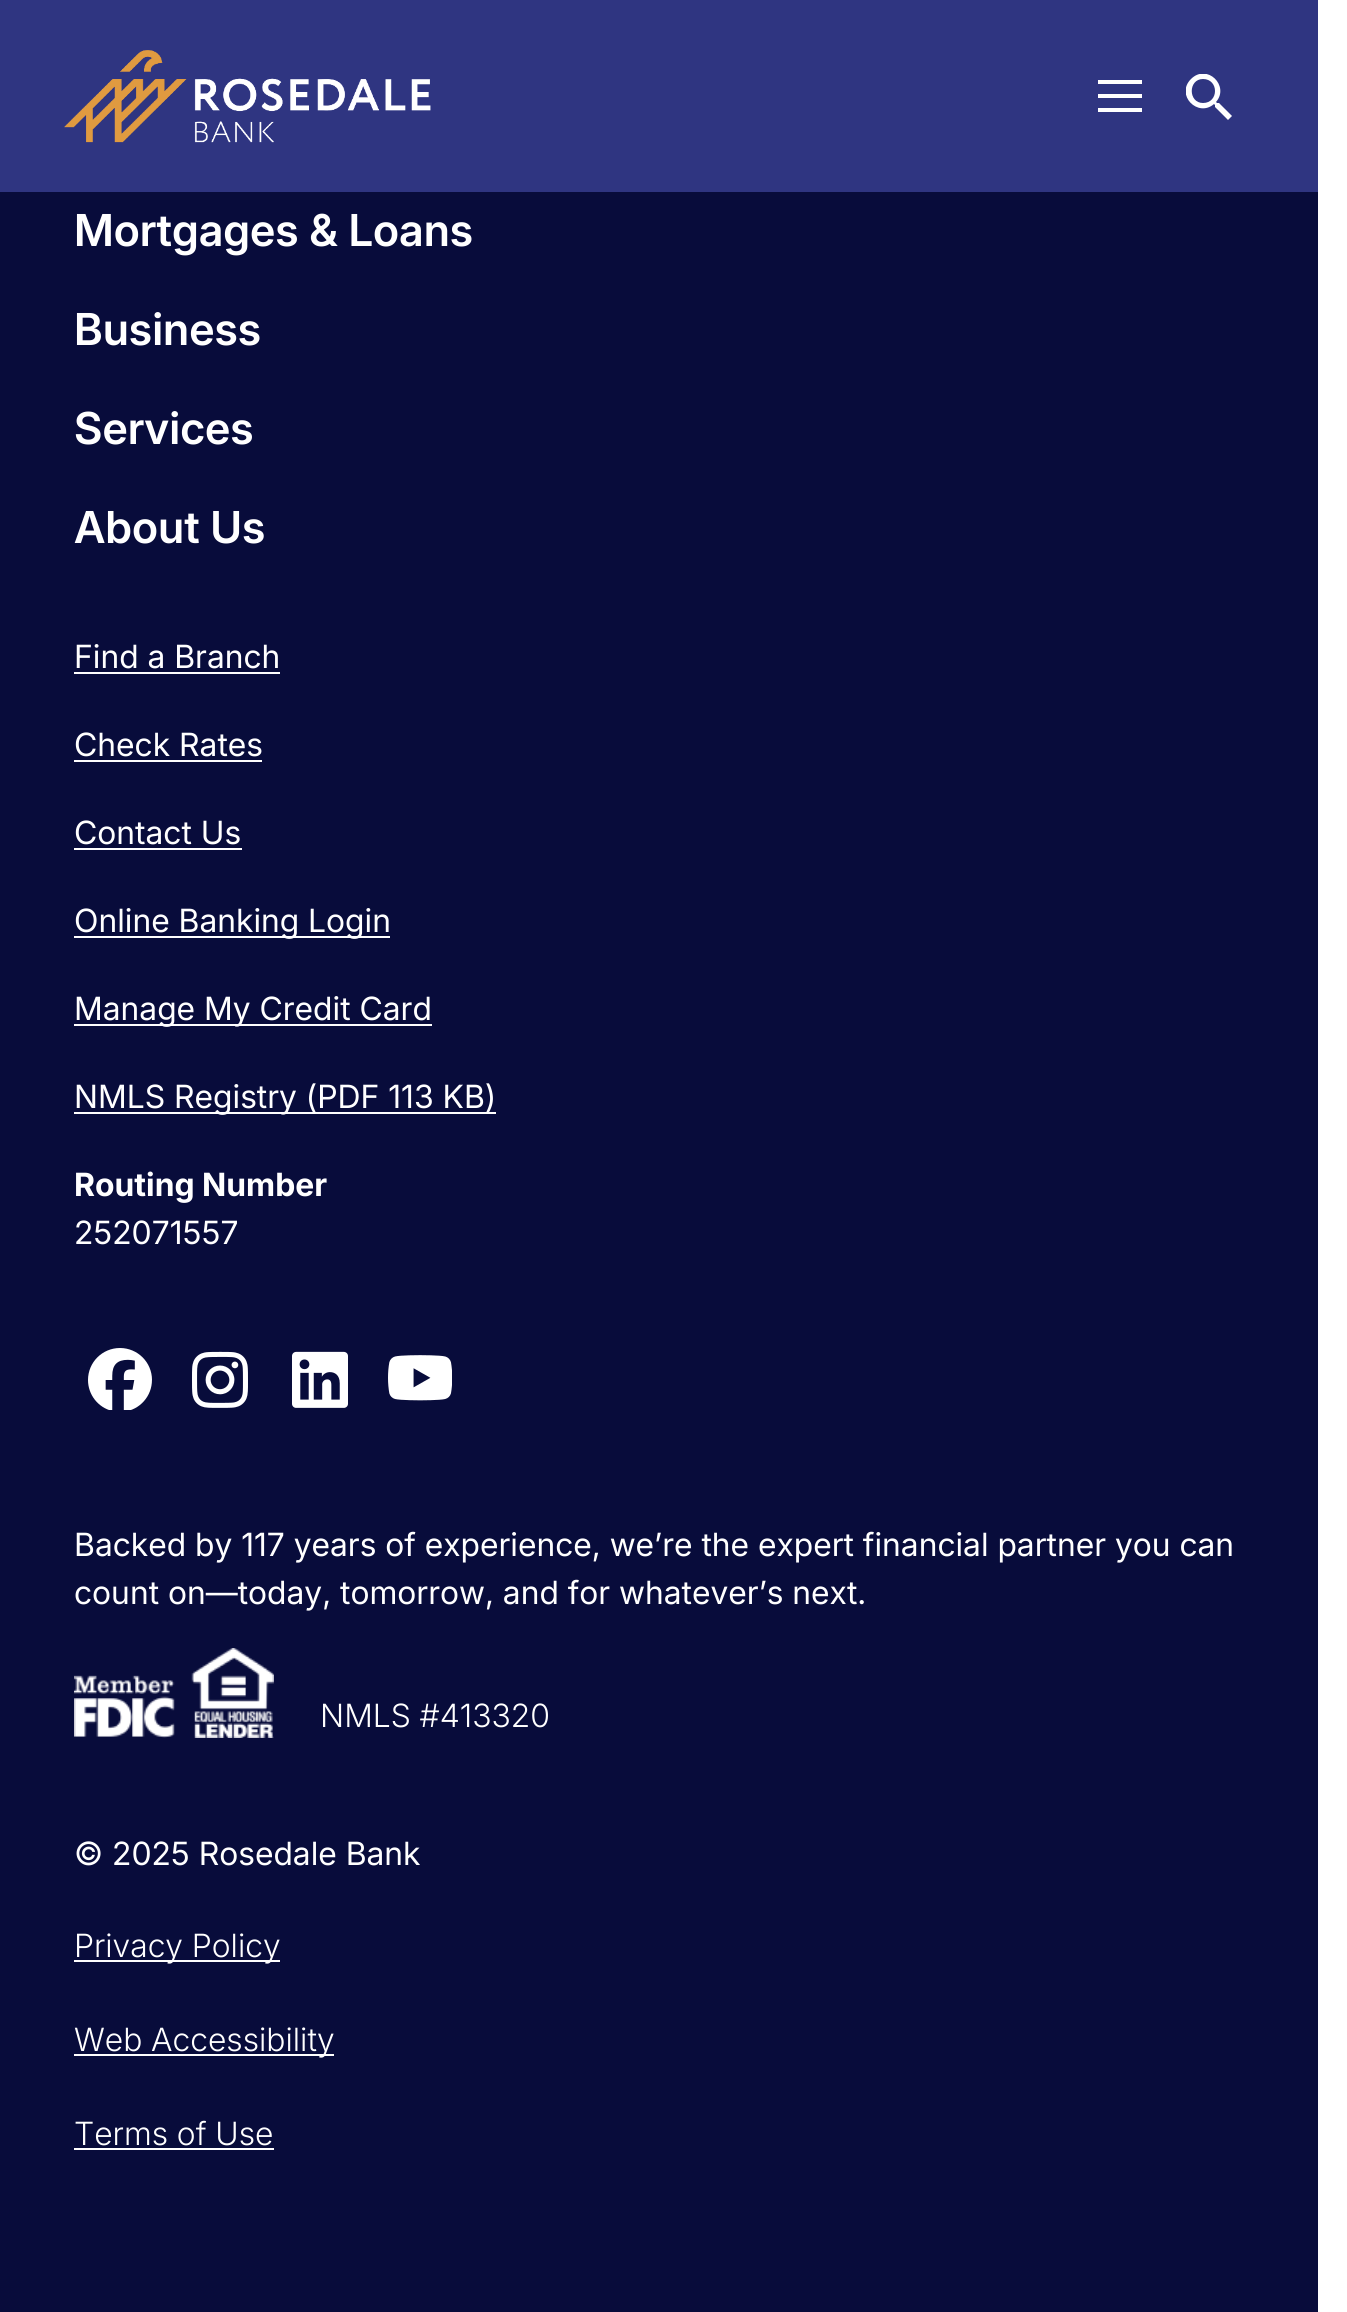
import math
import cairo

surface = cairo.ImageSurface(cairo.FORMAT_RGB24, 1347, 2312)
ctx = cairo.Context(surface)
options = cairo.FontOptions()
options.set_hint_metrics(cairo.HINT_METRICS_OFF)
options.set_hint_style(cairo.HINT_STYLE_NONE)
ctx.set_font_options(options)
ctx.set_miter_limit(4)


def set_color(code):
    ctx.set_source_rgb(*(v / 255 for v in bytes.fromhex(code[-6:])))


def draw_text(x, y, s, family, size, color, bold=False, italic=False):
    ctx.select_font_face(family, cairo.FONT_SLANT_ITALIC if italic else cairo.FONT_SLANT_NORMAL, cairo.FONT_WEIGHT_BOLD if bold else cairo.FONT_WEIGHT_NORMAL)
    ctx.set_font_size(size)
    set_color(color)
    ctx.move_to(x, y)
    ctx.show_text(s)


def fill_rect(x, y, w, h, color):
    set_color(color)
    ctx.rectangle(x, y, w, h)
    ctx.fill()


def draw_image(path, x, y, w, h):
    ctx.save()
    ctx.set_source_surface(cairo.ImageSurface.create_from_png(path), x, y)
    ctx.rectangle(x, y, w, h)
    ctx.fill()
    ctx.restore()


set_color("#ffffff")
ctx.paint()
fill_rect(0, 0, 1318, 192, "#2f3581")
draw_image("assets/img1.png", 64, 50, 367, 93)
fill_rect(1098, 80, 44, 4, "#ffffff")
fill_rect(1098, 94, 44, 4, "#ffffff")
fill_rect(1098, 108, 44, 4, "#ffffff")
ctx.save()
ctx.rectangle(1186, 74, 46, 46)
ctx.clip()
ctx.new_path()
ctx.move_to(1219, 103)
ctx.line_to(1217, 103)
ctx.line_to(1216, 102)
ctx.curve_to(1230, 86, 1207, 63, 1191, 79)
ctx.curve_to(1175, 95, 1198, 118, 1214, 104)
ctx.line_to(1215, 105)
ctx.line_to(1215, 107)
ctx.line_to(1228, 120)
ctx.line_to(1232, 116)
ctx.close_path()
ctx.move_to(1203, 103)
ctx.curve_to(1188, 103, 1188, 79, 1203, 79)
ctx.curve_to(1219, 79, 1219, 103, 1203, 103)
ctx.close_path()
ctx.fill()
ctx.restore()
fill_rect(0, 192, 1318, 2120, "#080c3b")
draw_text(74, 246, "Mortgages & Loans", "Inter SemiBold", 44, "#ffffff")
draw_text(74, 345, "Business", "Inter SemiBold", 44, "#ffffff")
draw_text(74, 444, "Services", "Inter SemiBold", 44, "#ffffff")
draw_text(74, 543, "About Us", "Inter SemiBold", 44, "#ffffff")
draw_text(74, 668, "Find a Branch", "Inter", 32, "#ffffff")
fill_rect(74, 672, 206, 2, "#ffffff")
draw_text(74, 756, "Check Rates", "Inter", 32, "#ffffff")
fill_rect(74, 760, 188, 2, "#ffffff")
draw_text(74, 844, "Contact Us", "Inter", 32, "#ffffff")
fill_rect(74, 848, 168, 2, "#ffffff")
fill_rect(74, 936, 316, 2, "#ffffff")
draw_text(74, 932, "Online Banking Login", "Inter", 32, "#ffffff")
fill_rect(74, 1024, 358, 2, "#ffffff")
draw_text(74, 1020, "Manage My Credit Card", "Inter", 32, "#ffffff")
fill_rect(74, 1112, 422, 2, "#ffffff")
draw_text(74, 1108, "NMLS Registry (PDF 113 KB)", "Inter", 32, "#ffffff")
draw_text(74, 1196, "Routing Number", "Inter", 32, "#ffffff", bold=True)
draw_text(74, 1244, "252071557", "Inter", 32, "#ffffff")
draw_image("assets/img2.png", 88, 1348, 64, 62)
draw_image("assets/img3.png", 192, 1351, 56, 57)
draw_image("assets/img4.png", 292, 1351, 56, 57)
draw_image("assets/img5.png", 388, 1355, 64, 46)
draw_text(74, 1556, "Backed by 117 years of experience, we’re the expert financial partner you can", "Inter", 32, "#ffffff")
draw_text(74, 1604, "count on—today, tomorrow, and for whatever’s next.", "Inter", 32, "#ffffff")
draw_image("assets/img6.png", 74, 1648, 200, 90)
draw_text(320, 1727, "NMLS #413320", "Inter Light", 32, "#ffffff")
draw_text(74, 1865, "© 2025 Rosedale Bank", "Inter", 32, "#ffffff")
fill_rect(74, 1960, 206, 2, "#ffffff")
draw_text(74, 1957, "Privacy Policy", "Inter Light", 32, "#ffffff")
fill_rect(74, 2054, 260, 2, "#ffffff")
draw_text(74, 2051, "Web Accessibility", "Inter Light", 32, "#ffffff")
draw_text(74, 2145, "Terms of Use", "Inter Light", 32, "#ffffff")
fill_rect(74, 2148, 200, 2, "#ffffff")
surface.write_to_png("output.png")
